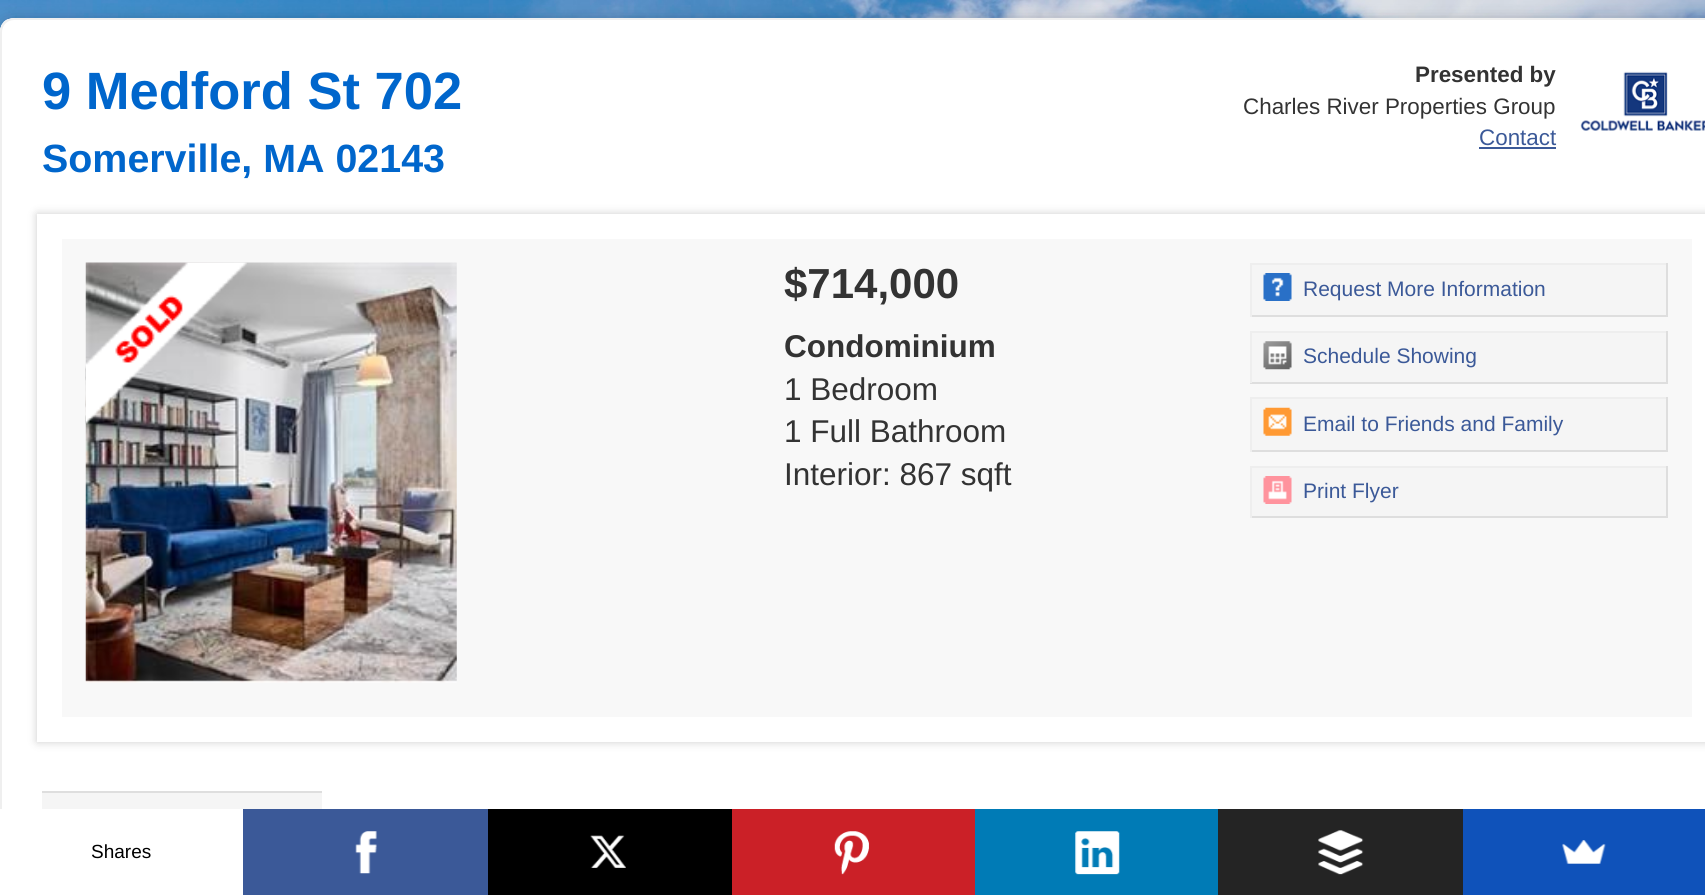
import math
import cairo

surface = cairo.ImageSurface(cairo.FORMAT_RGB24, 1705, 895)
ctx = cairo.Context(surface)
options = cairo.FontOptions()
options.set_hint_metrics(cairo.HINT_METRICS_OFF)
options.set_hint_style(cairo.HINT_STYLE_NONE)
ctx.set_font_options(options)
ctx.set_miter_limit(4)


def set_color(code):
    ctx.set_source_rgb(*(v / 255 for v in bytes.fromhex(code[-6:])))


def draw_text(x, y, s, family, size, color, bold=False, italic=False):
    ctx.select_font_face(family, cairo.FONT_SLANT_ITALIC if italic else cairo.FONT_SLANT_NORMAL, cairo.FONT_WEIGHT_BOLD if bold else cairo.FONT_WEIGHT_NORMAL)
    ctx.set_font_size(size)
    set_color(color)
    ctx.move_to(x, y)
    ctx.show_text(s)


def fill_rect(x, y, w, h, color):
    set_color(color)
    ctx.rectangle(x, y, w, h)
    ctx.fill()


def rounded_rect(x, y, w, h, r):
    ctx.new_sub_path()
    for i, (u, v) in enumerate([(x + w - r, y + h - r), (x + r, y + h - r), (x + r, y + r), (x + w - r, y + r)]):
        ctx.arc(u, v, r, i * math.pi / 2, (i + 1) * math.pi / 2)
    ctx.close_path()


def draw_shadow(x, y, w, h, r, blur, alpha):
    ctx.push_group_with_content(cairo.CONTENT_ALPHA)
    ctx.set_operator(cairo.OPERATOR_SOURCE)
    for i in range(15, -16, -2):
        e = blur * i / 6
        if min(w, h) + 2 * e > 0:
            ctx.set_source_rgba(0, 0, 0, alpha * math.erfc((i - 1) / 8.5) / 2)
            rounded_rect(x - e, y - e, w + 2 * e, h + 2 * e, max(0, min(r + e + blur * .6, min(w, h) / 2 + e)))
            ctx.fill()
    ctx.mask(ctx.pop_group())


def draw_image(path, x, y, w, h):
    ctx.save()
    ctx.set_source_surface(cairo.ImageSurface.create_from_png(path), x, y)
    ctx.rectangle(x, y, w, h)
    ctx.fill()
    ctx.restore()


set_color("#ffffff")
ctx.paint()
draw_image("assets/img1.png", 0, 0, 1705, 31)
set_color("#000000")
draw_shadow(0, 26, 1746, 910, 14, 9, 0.5)
set_color("#ffffff")
ctx.new_path()
ctx.move_to(14, 18)
ctx.line_to(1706, 18)
ctx.line_to(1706, 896)
ctx.line_to(0, 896)
ctx.line_to(0, 32)
ctx.curve_to(0, 24.5, 6.5, 18, 14, 18)
ctx.close_path()
ctx.fill()
draw_image("assets/img2.png", 0, 19, 9, 13)
rounded_rect(1, 19, 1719, 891, 13)
set_color("#efefef")
ctx.stroke()
draw_text(42, 109, "9 Medford St 702", "Liberation Sans", 52.5, "#0066cc", bold=True)
draw_text(42, 172, "Somerville, MA 02143", "Liberation Sans", 39.4, "#0066cc", bold=True)
draw_text(1415, 82, "Presented by", "Liberation Sans", 22.4, "#333333", bold=True)
draw_text(1243, 114, "Charles River Properties Group", "Liberation Sans", 22.4, "#333333")
draw_text(1479, 145, "Contact", "Liberation Sans", 22.4, "#3b5998")
fill_rect(1479, 147, 77, 2, "#3b5998")
draw_image("assets/img3.png", 1580, 71, 125, 60)
set_color("#000000")
draw_shadow(37, 214, 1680, 528, 0, 4.5, 0.2)
set_color("#f8f8f8")
ctx.rectangle(49.5, 226.5, 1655, 503)
ctx.fill_preserve()
set_color("#ffffff")
ctx.set_line_width(25)
ctx.stroke()
draw_image("assets/img4.png", 85, 262, 372, 421)
draw_image("assets/img5.png", 85, 262, 162, 162)
draw_text(784, 298, "$714,000", "Liberation Sans", 42, "#333333", bold=True)
draw_text(784, 357, "Condominium", "Liberation Sans", 31.5, "#333333", bold=True)
draw_text(784, 400, "1 Bedroom", "Liberation Sans", 31.5, "#333333")
draw_text(784, 442, "1 Full Bathroom", "Liberation Sans", 31.5, "#333333")
draw_text(784, 485, "Interior: 867 sqft", "Liberation Sans", 31.5, "#333333")
fill_rect(1252, 265, 414, 50, "#f5f5f5")
fill_rect(1250, 263, 418, 2, "#eeeeee")
fill_rect(1666, 263, 2, 54, "#dedede")
fill_rect(1250, 315, 418, 2, "#dedede")
fill_rect(1250, 263, 2, 54, "#eeeeee")
draw_image("assets/img6.png", 1263, 273, 29, 28)
draw_text(1303, 296, "Request More Information", "Liberation Sans", 21, "#3b5998")
fill_rect(1252, 333, 414, 49, "#f5f5f5")
fill_rect(1250, 331, 418, 2, "#eeeeee")
fill_rect(1666, 331, 2, 52, "#dedede")
fill_rect(1250, 382, 418, 2, "#dedede")
fill_rect(1250, 331, 2, 52, "#eeeeee")
draw_image("assets/img7.png", 1263, 341, 29, 29)
draw_text(1303, 363, "Schedule Showing", "Liberation Sans", 21, "#3b5998")
fill_rect(1252, 399, 414, 51, "#f5f5f5")
fill_rect(1250, 397, 418, 2, "#eeeeee")
fill_rect(1666, 397, 2, 55, "#dedede")
fill_rect(1250, 450, 418, 2, "#dedede")
fill_rect(1250, 397, 2, 55, "#eeeeee")
draw_image("assets/img8.png", 1263, 407, 29, 29)
draw_text(1303, 431, "Email to Friends and Family", "Liberation Sans", 21, "#3b5998")
fill_rect(1252, 468, 414, 48, "#f5f5f5")
fill_rect(1250, 466, 418, 2, "#eeeeee")
fill_rect(1666, 466, 2, 52, "#dedede")
fill_rect(1250, 516, 418, 2, "#dedede")
fill_rect(1250, 466, 2, 52, "#eeeeee")
draw_image("assets/img9.png", 1263, 476, 29, 28)
draw_text(1303, 498, "Print Flyer", "Liberation Sans", 21, "#3b5998")
fill_rect(42, 793, 280, 16, "#f5f5f5")
fill_rect(42, 791, 280, 2, "#dedede")
fill_rect(0, 809, 2, 86, "#ffffff")
draw_text(91, 858, "Shares", "Liberation Sans", 19, "#000000")
fill_rect(243, 809, 245, 86, "#3b5998")
draw_image("assets/img10.png", 355, 831, 22, 43)
fill_rect(488, 809, 244, 86, "#000000")
draw_image("assets/img11.png", 590, 835, 36, 33)
fill_rect(732, 809, 243, 86, "#cb2027")
draw_image("assets/img12.png", 834, 831, 35, 44)
fill_rect(975, 809, 243, 86, "#007bb6")
draw_image("assets/img13.png", 1075, 831, 45, 44)
fill_rect(1218, 809, 245, 86, "#242424")
draw_image("assets/img14.png", 1318, 830, 46, 45)
fill_rect(1463, 809, 242, 86, "#0f52ba")
draw_image("assets/img15.png", 1562, 840, 44, 24)
surface.write_to_png("output.png")
